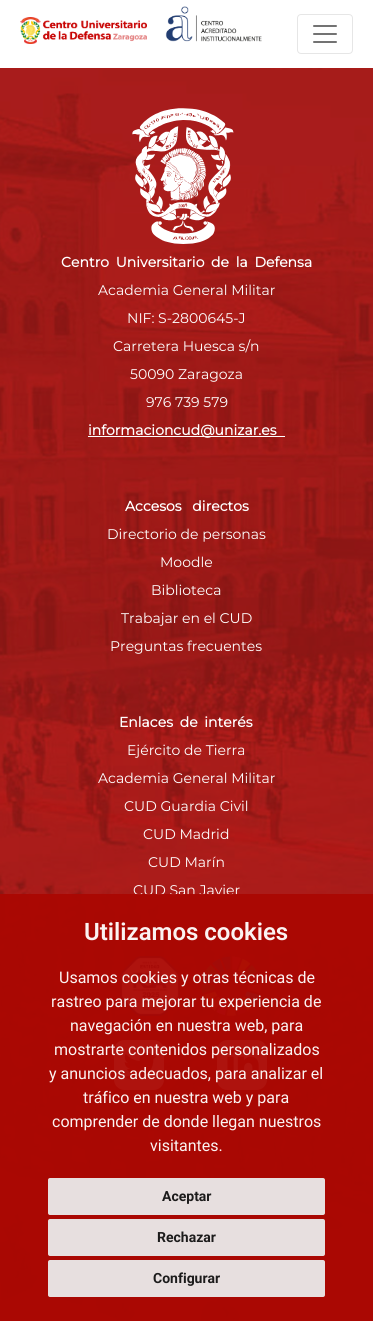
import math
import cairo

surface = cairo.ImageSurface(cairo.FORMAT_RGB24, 373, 1321)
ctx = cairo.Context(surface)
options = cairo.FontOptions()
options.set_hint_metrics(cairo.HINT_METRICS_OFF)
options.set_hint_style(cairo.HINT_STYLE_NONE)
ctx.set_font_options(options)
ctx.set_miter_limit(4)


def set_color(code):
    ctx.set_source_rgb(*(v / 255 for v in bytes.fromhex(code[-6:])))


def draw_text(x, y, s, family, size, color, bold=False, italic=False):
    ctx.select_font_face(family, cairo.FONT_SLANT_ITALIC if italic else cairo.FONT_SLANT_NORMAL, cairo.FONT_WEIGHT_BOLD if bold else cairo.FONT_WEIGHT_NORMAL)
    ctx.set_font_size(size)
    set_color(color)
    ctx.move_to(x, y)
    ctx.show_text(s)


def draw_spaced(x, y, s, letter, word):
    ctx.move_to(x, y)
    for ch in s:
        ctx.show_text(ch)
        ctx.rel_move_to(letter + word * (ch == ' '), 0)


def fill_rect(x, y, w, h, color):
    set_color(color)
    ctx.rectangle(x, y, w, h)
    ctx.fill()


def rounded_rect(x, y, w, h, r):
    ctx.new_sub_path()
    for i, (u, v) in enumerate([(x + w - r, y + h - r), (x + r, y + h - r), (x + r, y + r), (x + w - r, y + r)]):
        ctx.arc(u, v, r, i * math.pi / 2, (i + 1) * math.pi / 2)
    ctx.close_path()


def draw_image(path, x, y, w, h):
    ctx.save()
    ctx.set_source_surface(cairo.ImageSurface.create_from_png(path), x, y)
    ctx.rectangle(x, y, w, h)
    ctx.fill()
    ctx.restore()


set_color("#ffffff")
ctx.paint()
draw_image("assets/img1.png", 20, 17, 127, 27)
draw_image("assets/img2.png", 165, 6, 97, 36)
rounded_rect(297.5, 14.5, 55, 39, 3.5)
set_color("#e6e6e6")
ctx.set_line_width(1)
ctx.stroke()
draw_image("assets/img3.png", 313, 25, 24, 18)
draw_image("assets/img4.png", 0, 68, 373, 1253)
draw_image("assets/img5.png", 132, 108, 102, 136)
ctx.select_font_face("Montserrat", cairo.FONT_SLANT_NORMAL, cairo.FONT_WEIGHT_BOLD)
ctx.set_font_size(14)
set_color("#ffffff")
draw_spaced(61, 267, "Centro Universitario de la Defensa", 0, 3)
draw_text(98, 295, "Academia General Militar", "Montserrat", 14, "#ffffff")
draw_text(127, 323, "NIF: S-2800645-J", "Montserrat", 14, "#ffffff")
draw_text(113, 351, "Carretera Huesca s/n", "Montserrat", 14, "#ffffff")
draw_text(130, 379, "50090 Zaragoza", "Montserrat", 14, "#ffffff")
draw_text(146, 407, "976 739 579", "Montserrat", 14, "#ffffff")
fill_rect(88, 436, 197, 1, "#ffffff")
draw_text(88, 435, "informacioncud@unizar.es", "Montserrat", 14, "#ffffff", bold=True)
draw_spaced(125, 511, "Accesos directos", 0, 7)
draw_text(107, 539, "Directorio de personas", "Montserrat", 14, "#ffffff")
draw_text(160, 567, "Moodle", "Montserrat", 14, "#ffffff")
draw_text(151, 595, "Biblioteca", "Montserrat", 14, "#ffffff")
draw_text(121, 623, "Trabajar en el CUD", "Montserrat", 14, "#ffffff")
draw_text(110, 651, "Preguntas frecuentes", "Montserrat", 14, "#ffffff")
ctx.select_font_face("Montserrat", cairo.FONT_SLANT_NORMAL, cairo.FONT_WEIGHT_BOLD)
draw_spaced(119, 727, "Enlaces de interés", 0, 3)
draw_text(127, 755, "Ejército de Tierra", "Montserrat", 14, "#ffffff")
draw_text(98, 783, "Academia General Militar", "Montserrat", 14, "#ffffff")
draw_text(124, 811, "CUD Guardia Civil", "Montserrat", 14, "#ffffff")
draw_text(143, 839, "CUD Madrid", "Montserrat", 14, "#ffffff")
draw_text(148, 867, "CUD Marín", "Montserrat", 14, "#ffffff")
draw_text(133, 895, "CUD San Javier", "Montserrat", 14, "#ffffff")
draw_image("assets/img6.png", 120, 956, 60, 60)
draw_image("assets/img7.png", 201, 956, 60, 60)
draw_image("assets/img8.png", 114, 1040, 50, 50)
draw_image("assets/img9.png", 217, 1040, 50, 50)
ctx.set_source_rgba(0.667, 0.031, 0.012, 0.95)
ctx.rectangle(0, 894, 373, 427)
ctx.fill()
draw_text(84, 940, "Utilizamos cookies", "Roboto SemiBold", 24, "#fbf3f2")
draw_text(59, 983, "Usamos cookies y otras técnicas de", "Roboto", 16, "#fbf3f2")
draw_text(51, 1007, "rastreo para mejorar tu experiencia de", "Roboto", 16, "#fbf3f2")
draw_text(70, 1031, "navegación en nuestra web, para", "Roboto", 16, "#fbf3f2")
draw_text(54, 1055, "mostrarte contenidos personalizados", "Roboto", 16, "#fbf3f2")
draw_text(49, 1079, "y anuncios adecuados, para analizar el", "Roboto", 16, "#fbf3f2")
draw_text(83, 1103, "tráfico en nuestra web y para", "Roboto", 16, "#fbf3f2")
draw_text(52, 1127, "comprender de donde llegan nuestros", "Roboto", 16, "#fbf3f2")
draw_text(150, 1151, "visitantes.", "Roboto", 16, "#fbf3f2")
ctx.set_source_rgba(0.918, 0.918, 0.918, 0.95)
rounded_rect(48, 1178, 277, 37, 2)
ctx.fill()
draw_text(162, 1201, "Aceptar", "Roboto", 14, "#1c1b1b", bold=True)
ctx.set_source_rgba(0.918, 0.918, 0.918, 0.95)
rounded_rect(48, 1219, 277, 37, 2)
ctx.fill()
draw_text(157, 1242, "Rechazar", "Roboto", 14, "#1c1b1b", bold=True)
ctx.set_source_rgba(0.918, 0.918, 0.918, 0.95)
rounded_rect(48, 1260, 277, 37, 2)
ctx.fill()
draw_text(153, 1283, "Configurar", "Roboto", 14, "#1c1b1b", bold=True)
surface.write_to_png("output.png")
